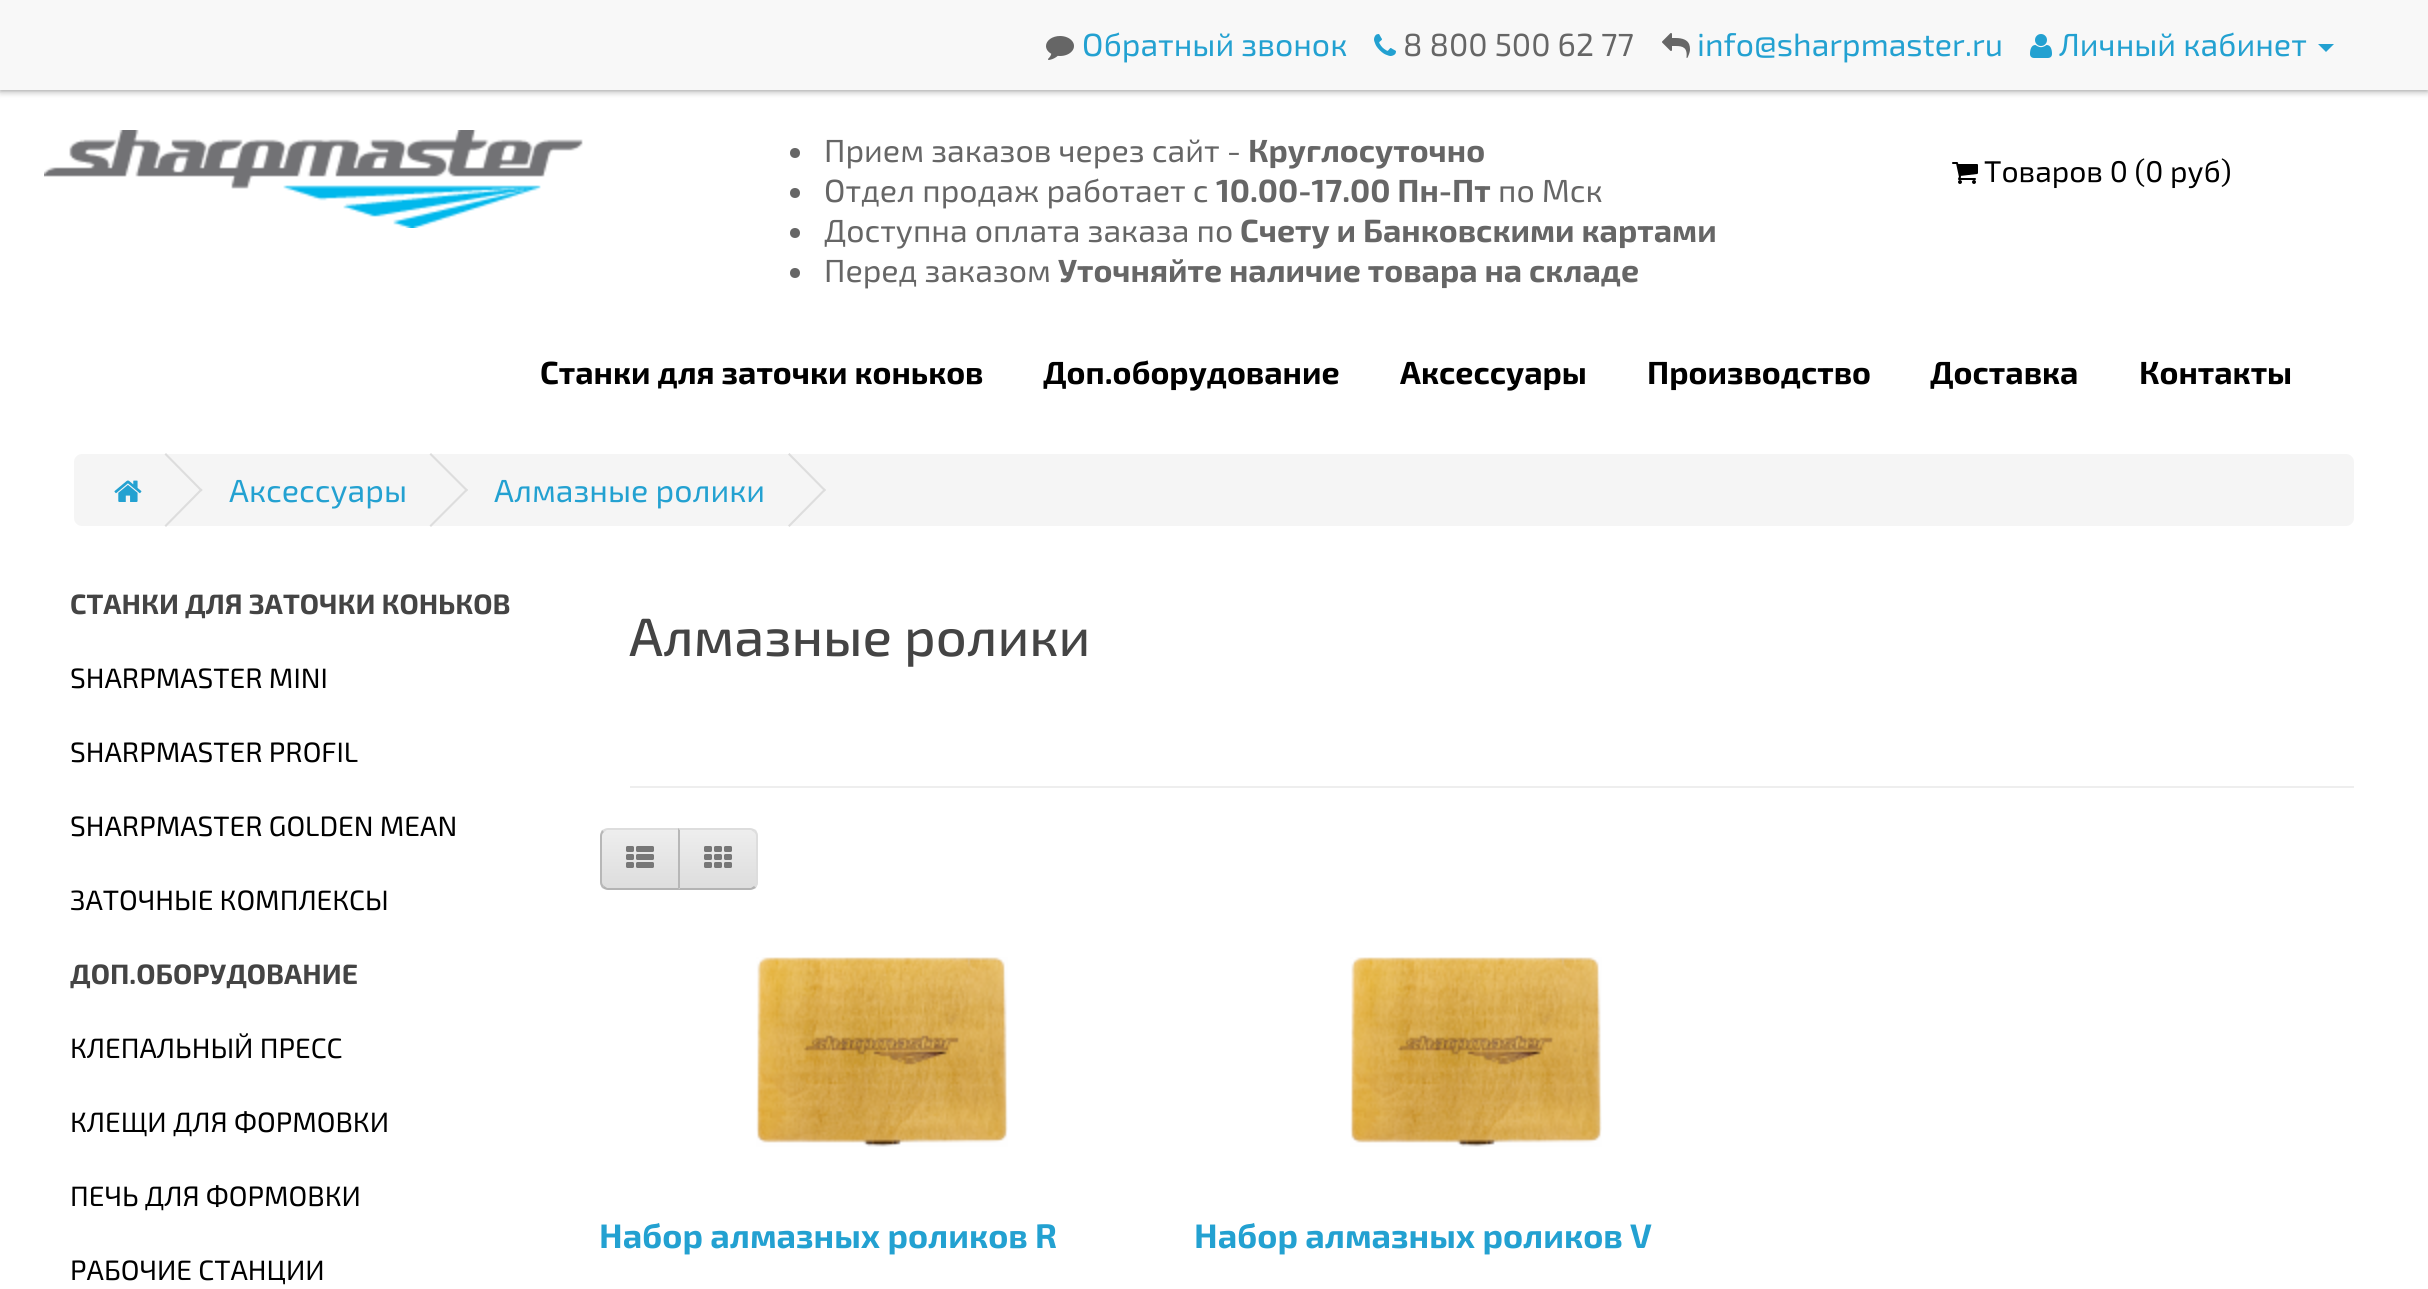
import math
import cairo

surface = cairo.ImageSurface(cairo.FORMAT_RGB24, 2428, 1289)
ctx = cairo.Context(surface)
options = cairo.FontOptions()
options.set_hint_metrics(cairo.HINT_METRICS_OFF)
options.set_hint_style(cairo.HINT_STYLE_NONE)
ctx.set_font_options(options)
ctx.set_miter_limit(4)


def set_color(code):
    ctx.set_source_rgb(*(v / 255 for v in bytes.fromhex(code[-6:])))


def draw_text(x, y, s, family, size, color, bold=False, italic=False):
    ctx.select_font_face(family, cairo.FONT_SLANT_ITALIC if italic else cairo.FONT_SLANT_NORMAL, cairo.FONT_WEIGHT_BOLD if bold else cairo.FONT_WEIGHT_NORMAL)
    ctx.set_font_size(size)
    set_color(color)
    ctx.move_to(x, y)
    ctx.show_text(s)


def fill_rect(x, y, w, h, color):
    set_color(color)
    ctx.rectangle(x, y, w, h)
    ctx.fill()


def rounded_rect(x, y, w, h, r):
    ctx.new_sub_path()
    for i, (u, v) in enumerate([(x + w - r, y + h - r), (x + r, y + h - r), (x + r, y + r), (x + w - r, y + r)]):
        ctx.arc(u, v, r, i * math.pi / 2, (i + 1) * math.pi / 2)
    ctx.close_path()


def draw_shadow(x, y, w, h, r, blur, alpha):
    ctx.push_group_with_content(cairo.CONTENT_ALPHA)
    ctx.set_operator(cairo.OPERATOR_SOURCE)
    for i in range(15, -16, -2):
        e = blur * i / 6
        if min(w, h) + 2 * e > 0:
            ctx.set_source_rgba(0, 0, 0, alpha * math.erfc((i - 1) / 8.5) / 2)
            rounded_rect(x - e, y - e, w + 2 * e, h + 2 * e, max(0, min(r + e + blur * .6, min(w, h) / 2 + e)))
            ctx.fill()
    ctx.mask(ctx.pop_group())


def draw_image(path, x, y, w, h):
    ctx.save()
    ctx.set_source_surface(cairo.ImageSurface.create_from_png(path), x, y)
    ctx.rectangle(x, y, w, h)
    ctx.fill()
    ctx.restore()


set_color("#ffffff")
ctx.paint()
set_color("#000000")
draw_shadow(0, 0, 2428, 90, 0, 4, 0.5)
fill_rect(0, 0, 2428, 90, "#f8f8f8")
draw_image("assets/img1.png", 1046, 36, 28, 24)
draw_text(1082, 56, "Обратный звонок", "Exo 2", 32, "#23a1d1")
draw_image("assets/img2.png", 1374, 34, 22, 22)
draw_text(1403, 56, "8 800 500 62 77", "Exo 2", 32, "#666666")
draw_image("assets/img3.png", 1662, 33, 28, 25)
draw_text(1697, 56, "info@sharpmaster.ru", "Exo 2", 32, "#23a1d1")
draw_image("assets/img4.png", 2030, 34, 22, 24)
draw_text(2059, 56, "Личный кабинет", "Exo 2", 32, "#23a1d1")
ctx.new_path()
ctx.move_to(2318, 44)
ctx.line_to(2334, 44)
ctx.line_to(2326, 52)
ctx.close_path()
ctx.fill()
draw_image("assets/img5.png", 44, 130, 539, 98)
set_color("#666666")
ctx.arc(795, 153, 5, 0, 2 * math.pi)
ctx.fill()
draw_text(824, 162, "Прием заказов через сайт -", "Exo 2", 32, "#666666")
draw_text(1248, 162, "Круглосуточно", "Exo 2", 32, "#666666", bold=True)
ctx.new_path()
ctx.arc(795, 193, 5, 0, 2 * math.pi)
ctx.fill()
draw_text(824, 202, "Отдел продаж работает с", "Exo 2", 32, "#666666")
draw_text(1216, 202, "10.00-17.00 Пн-Пт", "Exo 2", 32, "#666666", bold=True)
draw_text(1498, 202, "по Мск", "Exo 2", 32, "#666666")
ctx.new_path()
ctx.arc(795, 233, 5, 0, 2 * math.pi)
ctx.fill()
draw_text(824, 242, "Доступна оплата заказа по", "Exo 2", 32, "#666666")
draw_text(1240, 242, "Счету и Банковскими картами", "Exo 2", 32, "#666666", bold=True)
ctx.new_path()
ctx.arc(795, 273, 5, 0, 2 * math.pi)
ctx.fill()
draw_text(824, 282, "Перед заказом", "Exo 2", 32, "#666666")
draw_text(1058, 282, "Уточняйте наличие товара на складе", "Exo 2", 32, "#666666", bold=True)
draw_image("assets/img6.png", 1952, 162, 26, 22)
draw_text(1984, 182, "Товаров 0 (0 руб)", "Exo 2", 30, "#000000")
draw_text(540, 384, "Станки для заточки коньков", "Exo 2", 32, "#000000", bold=True)
draw_text(1043, 384, "Доп.оборудование", "Exo 2", 32, "#000000", bold=True)
draw_text(1400, 384, "Аксессуары", "Exo 2", 32, "#000000", bold=True)
draw_text(1647, 384, "Производство", "Exo 2", 32, "#000000", bold=True)
draw_text(1930, 384, "Доставка", "Exo 2", 32, "#000000", bold=True)
draw_text(2139, 384, "Контакты", "Exo 2", 32, "#000000", bold=True)
set_color("#f5f5f5")
rounded_rect(74, 454, 2280, 72, 8)
ctx.fill()
draw_image("assets/img7.png", 114, 480, 28, 22)
set_color("#dddddd")
ctx.new_path()
ctx.move_to(164.5, 454.5)
ctx.line_to(166, 453)
ctx.line_to(202.5, 490)
ctx.line_to(201, 491.5)
ctx.close_path()
ctx.fill()
ctx.new_path()
ctx.move_to(164.5, 525.5)
ctx.line_to(201, 488.5)
ctx.line_to(202.5, 490)
ctx.line_to(166, 527)
ctx.close_path()
ctx.fill()
draw_text(229, 502, "Аксессуары", "Exo 2", 32, "#23a1d1")
set_color("#dddddd")
ctx.new_path()
ctx.move_to(429.5, 454.5)
ctx.line_to(431, 453)
ctx.line_to(468, 490)
ctx.line_to(466.5, 491.5)
ctx.close_path()
ctx.fill()
ctx.new_path()
ctx.move_to(429.5, 525.5)
ctx.line_to(466.5, 488.5)
ctx.line_to(468, 490)
ctx.line_to(431, 527)
ctx.close_path()
ctx.fill()
draw_text(494, 502, "Алмазные ролики", "Exo 2", 32, "#23a1d1")
set_color("#dddddd")
ctx.new_path()
ctx.move_to(788, 454.5)
ctx.line_to(789.5, 453)
ctx.line_to(826, 490)
ctx.line_to(824.5, 491.5)
ctx.close_path()
ctx.fill()
ctx.new_path()
ctx.move_to(788, 525.5)
ctx.line_to(824.5, 488.5)
ctx.line_to(826, 490)
ctx.line_to(789.5, 527)
ctx.close_path()
ctx.fill()
draw_text(70, 614, "СТАНКИ ДЛЯ ЗАТОЧКИ КОНЬКОВ", "Exo 2", 28, "#444444", bold=True)
draw_text(70, 688, "SHARPMASTER MINI", "Exo 2", 28, "#000000")
draw_text(70, 762, "SHARPMASTER PROFIL", "Exo 2", 28, "#000000")
draw_text(70, 836, "SHARPMASTER GOLDEN MEAN", "Exo 2", 28, "#000000")
draw_text(70, 910, "ЗАТОЧНЫЕ КОМПЛЕКСЫ", "Exo 2", 28, "#000000")
draw_text(70, 984, "ДОП.ОБОРУДОВАНИЕ", "Exo 2", 28, "#444444", bold=True)
draw_text(70, 1058, "КЛЕПАЛЬНЫЙ ПРЕСС", "Exo 2", 28, "#000000")
draw_text(70, 1132, "КЛЕЩИ ДЛЯ ФОРМОВКИ", "Exo 2", 28, "#000000")
draw_text(70, 1206, "ПЕЧЬ ДЛЯ ФОРМОВКИ", "Exo 2", 28, "#000000")
draw_text(70, 1280, "РАБОЧИЕ СТАНЦИИ", "Exo 2", 28, "#000000")
draw_text(629, 656, "Алмазные ролики", "Exo 2 Medium", 54, "#444444")
fill_rect(630, 786, 1724, 2, "#eeeeee")
ctx.save()
ctx.new_path()
ctx.move_to(608, 828)
ctx.line_to(680, 828)
ctx.line_to(680, 890)
ctx.line_to(608, 890)
ctx.curve_to(603.5, 890, 600, 886.5, 600, 882)
ctx.line_to(600, 836)
ctx.curve_to(600, 831.5, 603.5, 828, 608, 828)
ctx.close_path()
ctx.clip()
gradient = cairo.LinearGradient(640, 830, 640, 888)
gradient.add_color_stop_rgba(0, 0.933, 0.933, 0.933, 1)
gradient.add_color_stop_rgba(1, 0.867, 0.867, 0.867, 1)
ctx.set_source(gradient)
ctx.rectangle(600, 830, 78, 58)
ctx.fill()
ctx.restore()
set_color("#dddddd")
ctx.new_path()
ctx.move_to(608, 828)
ctx.curve_to(606, 828, 604, 829, 602, 830)
ctx.line_to(604, 832)
ctx.line_to(607, 830)
ctx.line_to(678, 830)
ctx.line_to(680, 828)
ctx.close_path()
ctx.fill()
set_color("#b3b3b3")
ctx.new_path()
ctx.move_to(680, 890)
ctx.line_to(678, 888)
ctx.line_to(607, 888)
ctx.line_to(604, 886)
ctx.line_to(602, 888)
ctx.curve_to(604, 889, 606, 890, 608, 890)
ctx.close_path()
ctx.fill()
set_color("#b7b7b7")
ctx.new_path()
ctx.move_to(600, 836)
ctx.line_to(600, 882)
ctx.curve_to(600, 884, 601, 886, 602, 888)
ctx.line_to(604, 886)
ctx.curve_to(603, 885, 602, 884, 602, 882)
ctx.line_to(602, 836)
ctx.curve_to(602, 834, 603, 833, 604, 832)
ctx.line_to(602, 830)
ctx.curve_to(601, 832, 600, 834, 600, 836)
ctx.close_path()
ctx.fill()
draw_image("assets/img8.png", 626, 846, 28, 22)
ctx.save()
ctx.new_path()
ctx.move_to(678, 828)
ctx.line_to(750, 828)
ctx.curve_to(754.5, 828, 758, 831.5, 758, 836)
ctx.line_to(758, 882)
ctx.curve_to(758, 886.5, 754.5, 890, 750, 890)
ctx.line_to(678, 890)
ctx.close_path()
ctx.clip()
gradient = cairo.LinearGradient(718, 830, 718, 888)
gradient.add_color_stop_rgba(0, 0.933, 0.933, 0.933, 1)
gradient.add_color_stop_rgba(1, 0.867, 0.867, 0.867, 1)
ctx.set_source(gradient)
ctx.rectangle(680, 830, 78, 58)
ctx.fill()
ctx.restore()
set_color("#dddddd")
ctx.new_path()
ctx.move_to(678, 828)
ctx.line_to(680, 830)
ctx.line_to(751, 830)
ctx.line_to(754, 832)
ctx.line_to(756, 830)
ctx.curve_to(754, 829, 752, 828, 750, 828)
ctx.close_path()
ctx.fill()
ctx.new_path()
ctx.move_to(758, 882)
ctx.line_to(758, 836)
ctx.curve_to(758, 834, 757, 832, 756, 830)
ctx.line_to(754, 832)
ctx.curve_to(755, 833, 756, 834, 756, 836)
ctx.line_to(756, 882)
ctx.curve_to(756, 884, 755, 885, 754, 886)
ctx.line_to(756, 888)
ctx.curve_to(757, 886, 758, 884, 758, 882)
ctx.close_path()
ctx.fill()
set_color("#b3b3b3")
ctx.new_path()
ctx.move_to(750, 890)
ctx.curve_to(752, 890, 754, 889, 756, 888)
ctx.line_to(754, 886)
ctx.line_to(751, 888)
ctx.line_to(680, 888)
ctx.line_to(678, 890)
ctx.close_path()
ctx.fill()
set_color("#b7b7b7")
ctx.new_path()
ctx.move_to(678, 828)
ctx.line_to(678, 890)
ctx.line_to(680, 888)
ctx.line_to(680, 830)
ctx.close_path()
ctx.fill()
draw_image("assets/img9.png", 704, 846, 28, 22)
draw_image("assets/img10.png", 756, 957, 252, 190)
draw_text(599, 1248, "Набор алмазных роликов R", "Exo 2", 34, "#23a1d1", bold=True)
draw_image("assets/img10.png", 1350, 957, 252, 190)
draw_text(1194, 1248, "Набор алмазных роликов V", "Exo 2", 34, "#23a1d1", bold=True)
surface.write_to_png("output.png")
